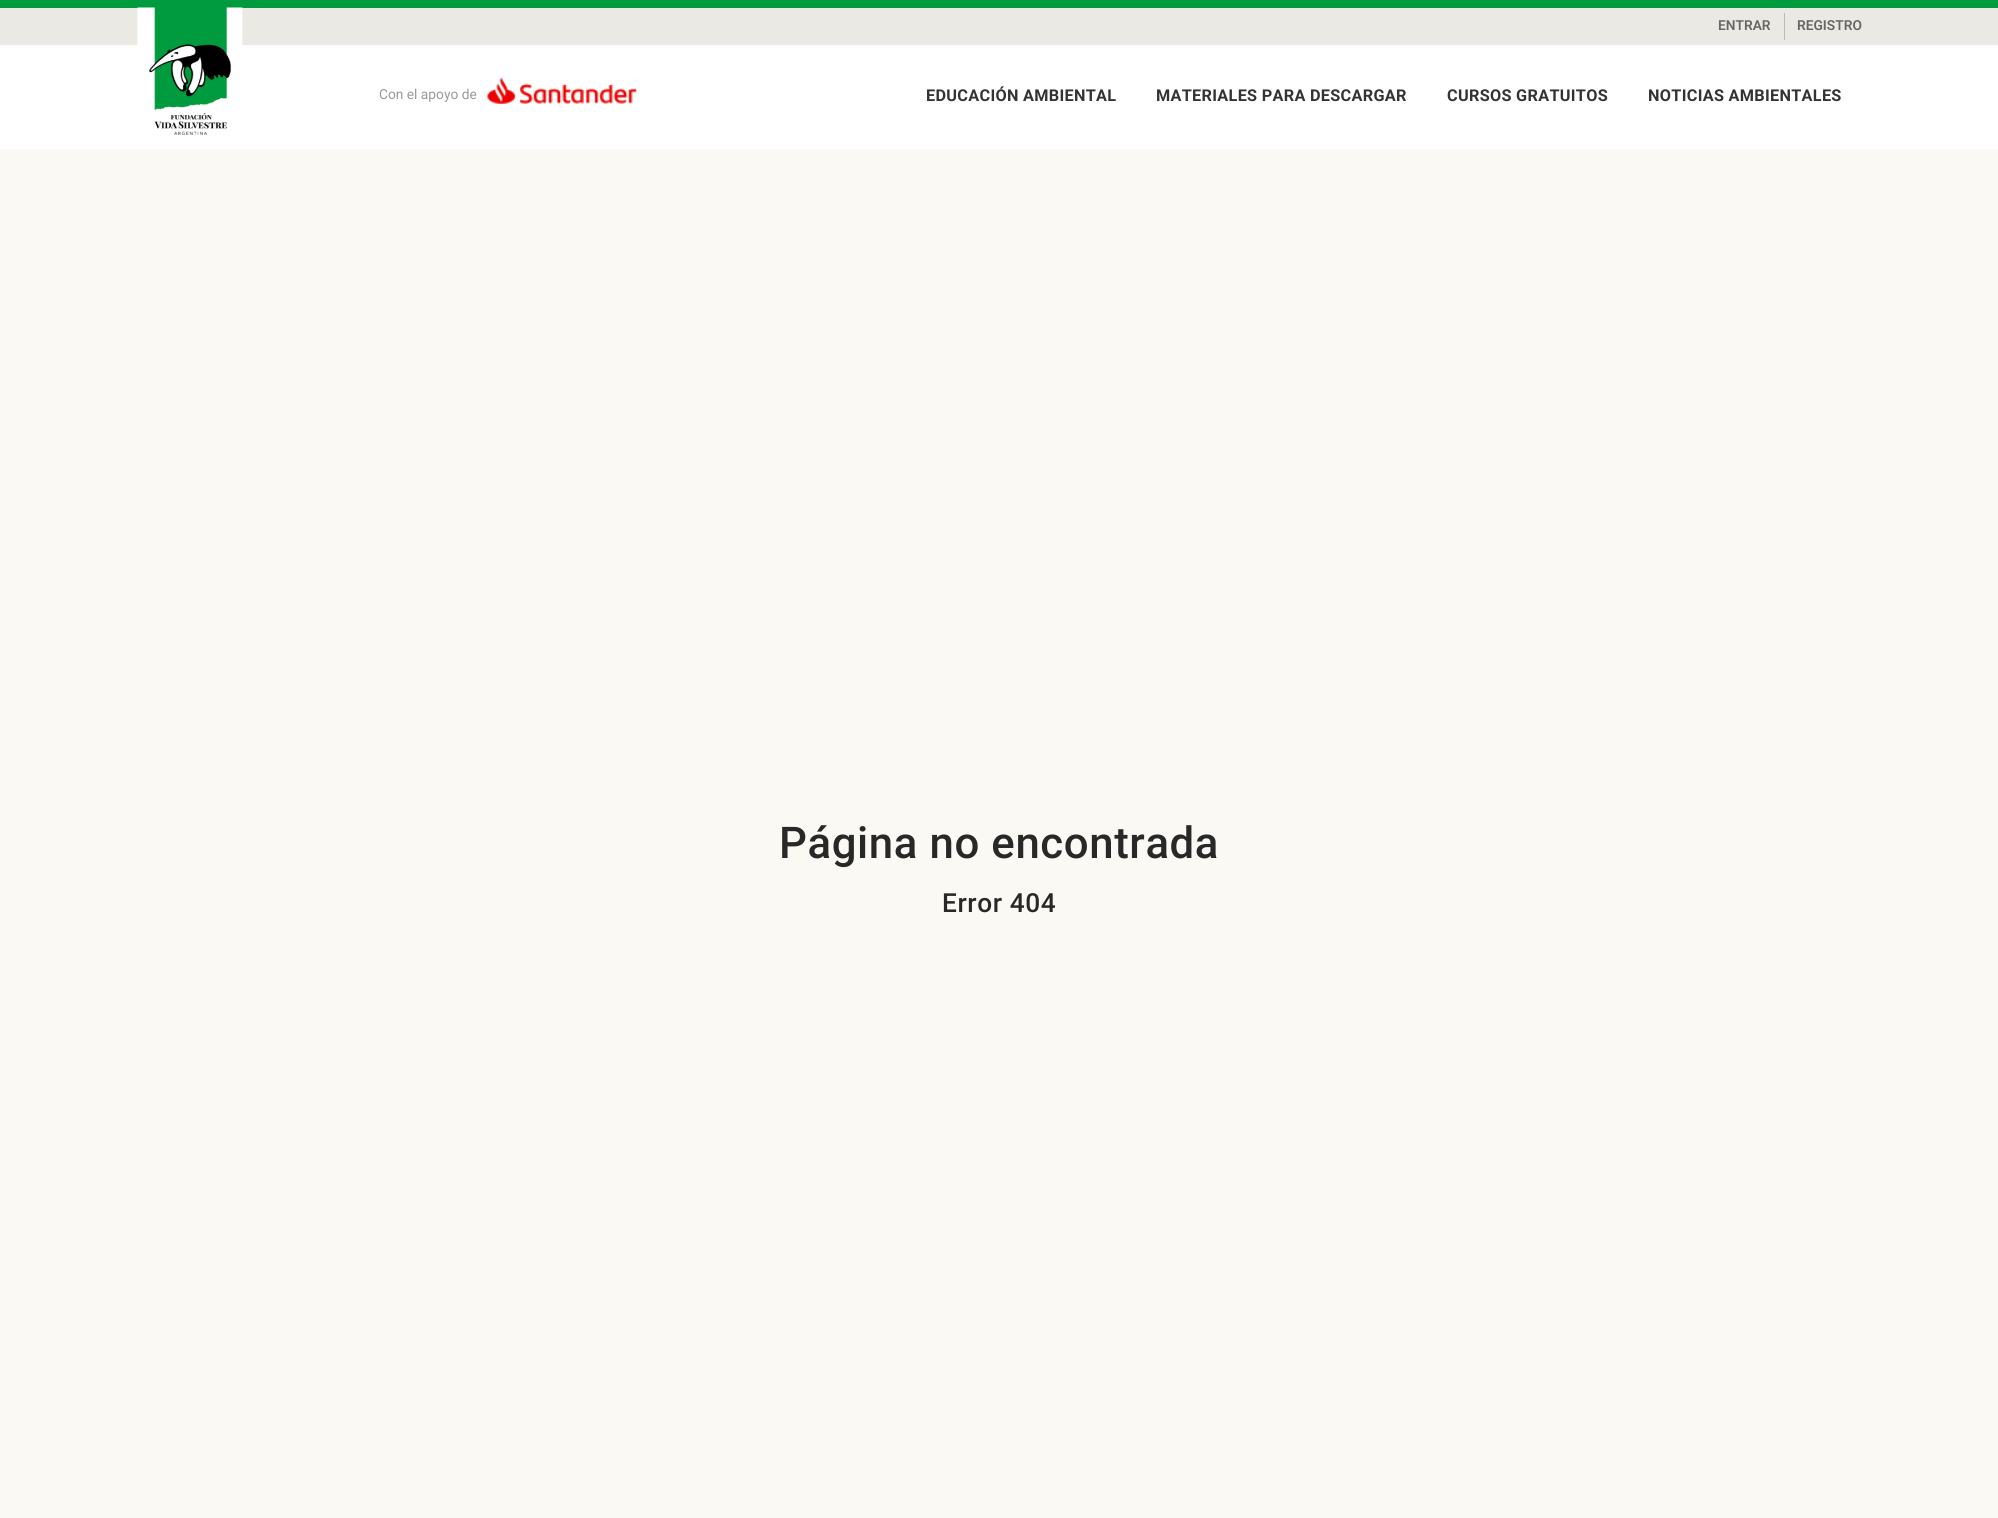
import math
import cairo

surface = cairo.ImageSurface(cairo.FORMAT_RGB24, 1998, 1518)
ctx = cairo.Context(surface)
options = cairo.FontOptions()
options.set_hint_metrics(cairo.HINT_METRICS_OFF)
options.set_hint_style(cairo.HINT_STYLE_NONE)
ctx.set_font_options(options)
ctx.set_miter_limit(4)


def set_color(code):
    ctx.set_source_rgb(*(v / 255 for v in bytes.fromhex(code[-6:])))


def draw_text(x, y, s, family, size, color, bold=False, italic=False):
    ctx.select_font_face(family, cairo.FONT_SLANT_ITALIC if italic else cairo.FONT_SLANT_NORMAL, cairo.FONT_WEIGHT_BOLD if bold else cairo.FONT_WEIGHT_NORMAL)
    ctx.set_font_size(size)
    set_color(color)
    ctx.move_to(x, y)
    ctx.show_text(s)


def draw_spaced(x, y, s, letter, word):
    ctx.move_to(x, y)
    for ch in s:
        ctx.show_text(ch)
        ctx.rel_move_to(letter + word * (ch == ' '), 0)


def fill_rect(x, y, w, h, color):
    set_color(color)
    ctx.rectangle(x, y, w, h)
    ctx.fill()


def draw_image(path, x, y, w, h):
    ctx.save()
    ctx.set_source_surface(cairo.ImageSurface.create_from_png(path), x, y)
    ctx.rectangle(x, y, w, h)
    ctx.fill()
    ctx.restore()


set_color("#ffffff")
ctx.paint()
fill_rect(0, 8, 1998, 37, "#eae9e3")
fill_rect(0, 0, 1998, 8, "#009b3e")
draw_text(1718, 30, "ENTRAR", "Roboto SemiBold", 13.75, "#666666")
fill_rect(1784, 13, 1, 27, "#bbbbbb")
draw_text(1797, 30, "REGISTRO", "Roboto SemiBold", 13.75, "#666666")
draw_image("assets/img1.png", 137, 7, 106, 128)
draw_text(379, 99, "Con el apoyo de", "Roboto", 13.75, "#999999")
draw_image("assets/img2.png", 487, 77, 150, 27)
ctx.select_font_face("Roboto", cairo.FONT_SLANT_NORMAL, cairo.FONT_WEIGHT_BOLD)
ctx.set_font_size(16.25)
set_color("#333333")
draw_spaced(926, 101, "EDUCACIÓN AMBIENTAL", 0.3, 0)
draw_spaced(1156, 101, "MATERIALES PARA DESCARGAR", 0.3, 0)
draw_spaced(1447, 101, "CURSOS GRATUITOS", 0.3, 0)
draw_spaced(1648, 101, "NOTICIAS AMBIENTALES", 0.3, 0)
fill_rect(0, 149, 1998, 1369, "#faf9f4")
ctx.select_font_face("Roboto Medium")
ctx.set_font_size(43.75)
set_color("#282828")
draw_spaced(779, 858, "Página no encontrada", 0.6, 0)
ctx.set_font_size(26.25)
draw_spaced(942, 912, "Error 404", 0.6, 0)
surface.write_to_png("output.png")
